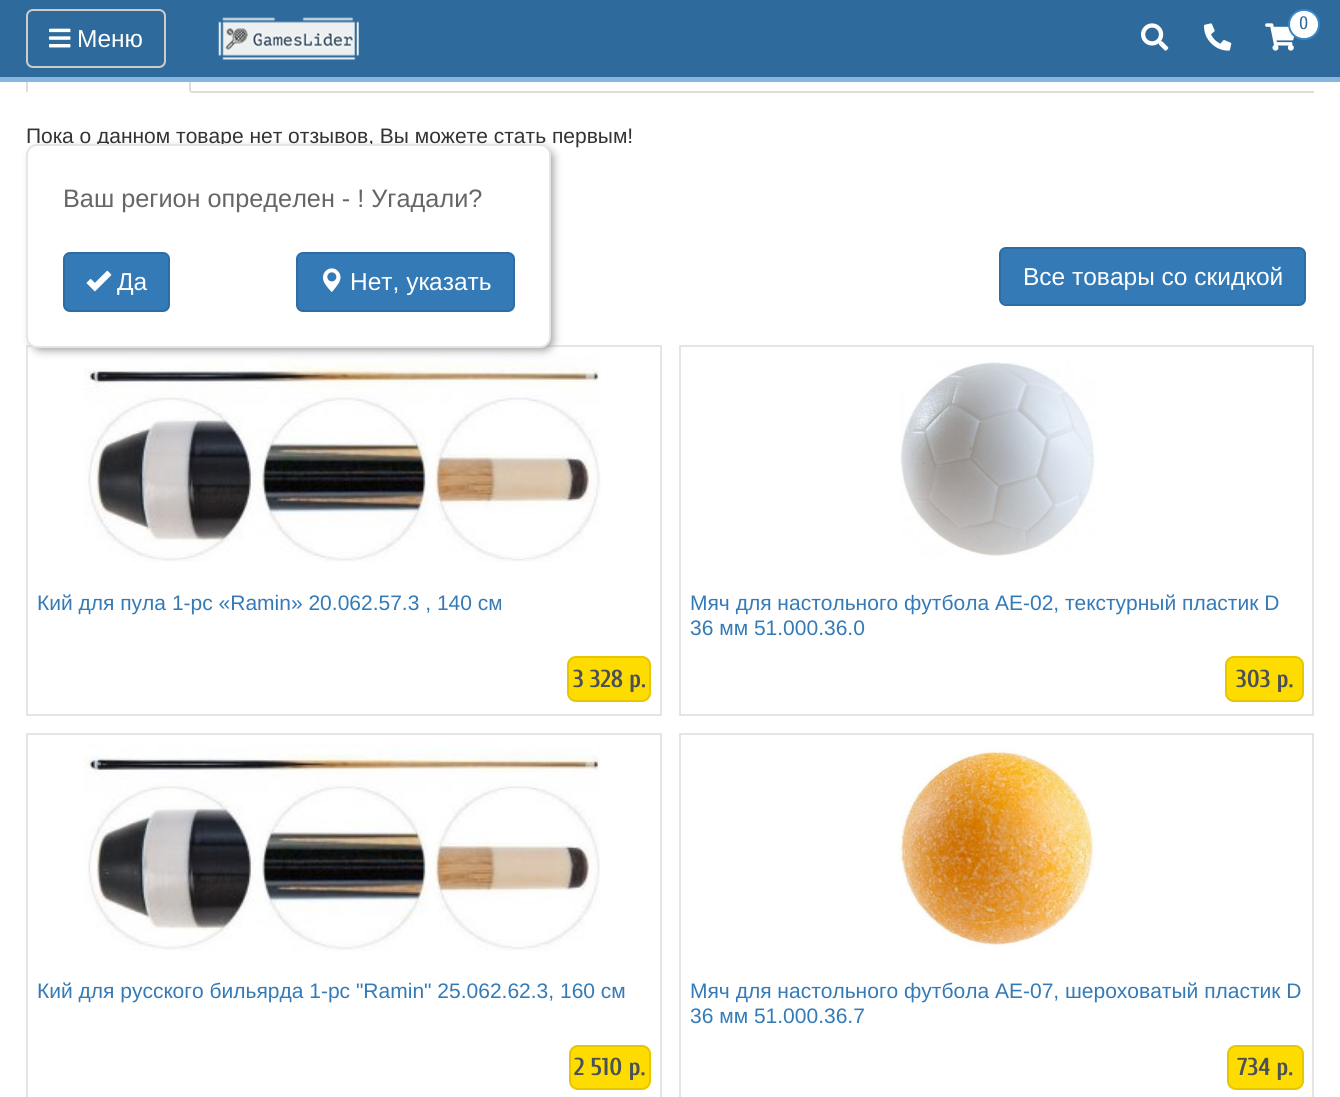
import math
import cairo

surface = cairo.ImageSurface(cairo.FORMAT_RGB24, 1340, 1097)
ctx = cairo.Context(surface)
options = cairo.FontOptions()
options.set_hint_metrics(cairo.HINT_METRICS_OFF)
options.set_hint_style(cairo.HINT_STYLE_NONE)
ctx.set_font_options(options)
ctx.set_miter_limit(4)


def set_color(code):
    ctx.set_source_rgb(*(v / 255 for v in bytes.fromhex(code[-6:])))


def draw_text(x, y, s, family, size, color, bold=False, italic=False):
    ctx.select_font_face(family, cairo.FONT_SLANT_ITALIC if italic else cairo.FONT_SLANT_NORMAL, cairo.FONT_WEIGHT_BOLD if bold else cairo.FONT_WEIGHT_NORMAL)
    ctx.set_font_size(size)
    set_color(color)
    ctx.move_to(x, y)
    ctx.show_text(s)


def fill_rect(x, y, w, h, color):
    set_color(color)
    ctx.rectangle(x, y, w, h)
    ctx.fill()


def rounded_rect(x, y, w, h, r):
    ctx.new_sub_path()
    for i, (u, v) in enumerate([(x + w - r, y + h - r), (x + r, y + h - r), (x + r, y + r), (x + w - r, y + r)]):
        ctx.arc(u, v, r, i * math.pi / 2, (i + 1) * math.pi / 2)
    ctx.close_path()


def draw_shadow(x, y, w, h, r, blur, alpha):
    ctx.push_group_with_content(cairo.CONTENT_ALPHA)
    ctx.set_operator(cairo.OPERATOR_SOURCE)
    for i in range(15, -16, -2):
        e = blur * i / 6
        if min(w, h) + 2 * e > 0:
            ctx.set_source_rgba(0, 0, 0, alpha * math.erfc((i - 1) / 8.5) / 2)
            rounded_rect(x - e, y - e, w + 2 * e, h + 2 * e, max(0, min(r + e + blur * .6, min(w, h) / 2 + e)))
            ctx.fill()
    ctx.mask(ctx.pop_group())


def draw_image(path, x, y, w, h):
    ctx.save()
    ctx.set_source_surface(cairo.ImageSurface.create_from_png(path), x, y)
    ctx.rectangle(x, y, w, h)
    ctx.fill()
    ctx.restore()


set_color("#ffffff")
ctx.paint()
set_color("#dddddd")
ctx.new_path()
ctx.move_to(189, 26)
ctx.line_to(191, 30)
ctx.line_to(191, 93)
ctx.line_to(189, 91)
ctx.line_to(189, 32)
ctx.curve_to(189, 30, 188, 29, 188, 28)
ctx.close_path()
ctx.fill()
ctx.new_path()
ctx.move_to(26, 93)
ctx.line_to(26, 30)
ctx.line_to(28, 26)
ctx.line_to(29, 28)
ctx.curve_to(29, 29, 28, 30, 28, 32)
ctx.line_to(28, 91)
ctx.close_path()
ctx.fill()
fill_rect(0, 0, 1340, 77, "#2e6a9c")
fill_rect(0, 77, 1340, 5, "#87b5dc")
rounded_rect(27, 10, 138, 57, 6)
set_color("#cccccc")
ctx.stroke()
draw_image("assets/img1.png", 49, 28, 22, 20)
draw_text(77, 47, "Меню", "Liberation Sans", 24.5, "#ffffff")
draw_image("assets/img2.png", 218, 17, 141, 43)
draw_image("assets/img3.png", 1141, 23, 28, 28)
draw_image("assets/img4.png", 1204, 23, 28, 28)
draw_image("assets/img5.png", 1265, 23, 30, 28)
rounded_rect(1289, 10, 30, 29, 14.5)
ctx.fill_preserve()
set_color("#3a85c3")
ctx.stroke()
draw_text(1299, 29, "0", "Cuprum", 18, "#2e6a9c")
ctx.rectangle(27, 346, 634, 369)
set_color("#e5e5e5")
ctx.stroke()
draw_image("assets/img8.png", 84, 355, 517, 207)
set_color("#999999")
draw_shadow(32, 149, 521, 201, 9, 4.5, 1)
draw_text(26, 143, "Пока о данном товаре нет отзывов, Вы можете стать первым!", "Liberation Sans", 21, "#333333")
set_color("#ffffff")
rounded_rect(27, 145, 523, 202, 10)
ctx.fill_preserve()
set_color("#e5e5e5")
ctx.stroke()
draw_text(63, 207, "Ваш регион определен - ! Угадали?", "Liberation Sans", 25.25, "#666666")
set_color("#337ab7")
rounded_rect(64, 253, 105, 58, 6)
ctx.fill_preserve()
set_color("#2e6da4")
ctx.stroke()
draw_image("assets/img6.png", 86, 270, 26, 22)
draw_text(117, 290, "Да", "Liberation Sans", 24.5, "#ffffff")
set_color("#337ab7")
rounded_rect(297, 253, 217, 58, 6)
ctx.fill_preserve()
set_color("#2e6da4")
ctx.stroke()
draw_image("assets/img7.png", 323, 268, 18, 24)
draw_text(350, 290, "Нет, указать", "Liberation Sans", 24.5, "#ffffff")
fill_rect(191, 91, 1123, 2, "#dddddd")
set_color("#337ab7")
rounded_rect(1000, 248, 305, 57, 6)
ctx.fill_preserve()
set_color("#2e6da4")
ctx.stroke()
draw_text(1023, 285, "Все товары со скидкой", "Liberation Sans", 24.5, "#ffffff")
draw_text(37, 610, "Кий для пула 1-pc «Ramin» 20.062.57.3 , 140 см", "Liberation Sans", 21, "#337ab7")
set_color("#ffdc00")
rounded_rect(568, 657, 82, 44, 8)
ctx.fill_preserve()
set_color("#e6c600")
ctx.stroke()
draw_text(573, 687, "3 328 р.", "Cuprum", 24.5, "#495057", bold=True)
ctx.rectangle(680, 346, 633, 369)
set_color("#e5e5e5")
ctx.stroke()
draw_image("assets/img9.png", 900, 362, 195, 195)
draw_text(690, 610, "Мяч для настольного футбола AE-02, текстурный пластик D", "Liberation Sans", 21, "#337ab7")
draw_text(690, 635, "36 мм 51.000.36.0", "Liberation Sans", 21, "#337ab7")
set_color("#ffdc00")
rounded_rect(1226, 657, 77, 44, 8)
ctx.fill_preserve()
set_color("#e6c600")
ctx.stroke()
draw_text(1236, 687, "303 р.", "Cuprum", 24.5, "#495057", bold=True)
ctx.rectangle(27, 734, 634, 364)
set_color("#e5e5e5")
ctx.stroke()
draw_image("assets/img10.png", 84, 744, 516, 207)
draw_text(37, 998, "Кий для русского бильярда 1-pc \"Ramin\" 25.062.62.3, 160 см", "Liberation Sans", 21, "#337ab7")
set_color("#ffdc00")
rounded_rect(570, 1046, 80, 43, 8)
ctx.fill_preserve()
set_color("#e6c600")
ctx.stroke()
draw_text(574, 1075, "2 510 р.", "Cuprum", 24.5, "#495057", bold=True)
ctx.rectangle(680, 734, 633, 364)
set_color("#e5e5e5")
ctx.stroke()
draw_image("assets/img11.png", 898, 748, 199, 201)
draw_text(690, 998, "Мяч для настольного футбола AE-07, шероховатый пластик D", "Liberation Sans", 21, "#337ab7")
draw_text(690, 1023, "36 мм 51.000.36.7", "Liberation Sans", 21, "#337ab7")
set_color("#ffdc00")
rounded_rect(1228, 1046, 75, 43, 8)
ctx.fill_preserve()
set_color("#e6c600")
ctx.stroke()
draw_text(1237, 1075, "734 р.", "Cuprum", 24.5, "#495057", bold=True)
surface.write_to_png("output.png")
